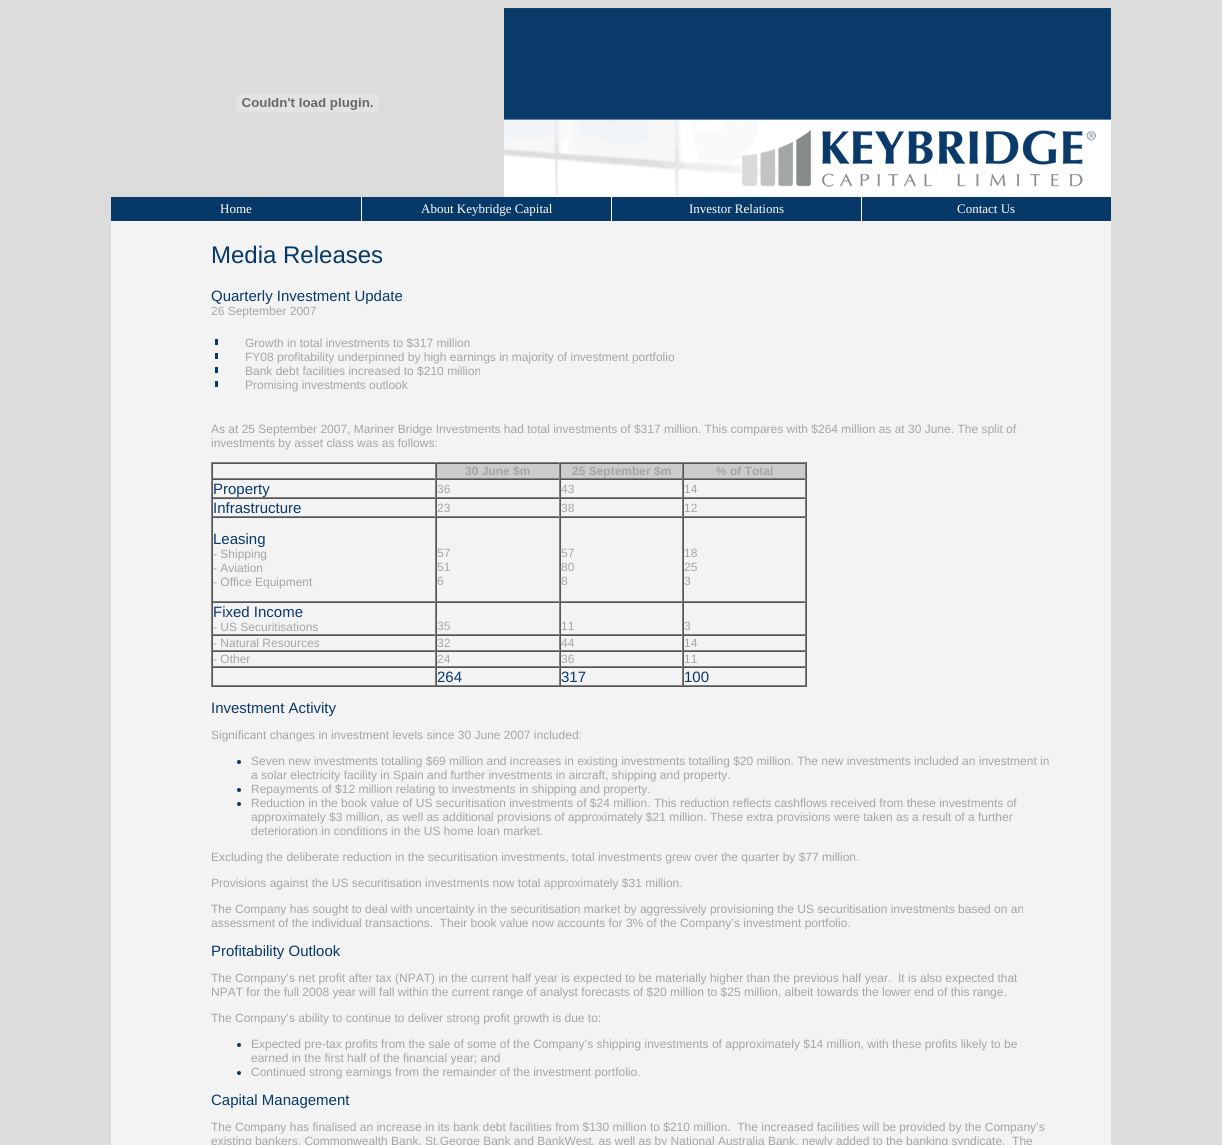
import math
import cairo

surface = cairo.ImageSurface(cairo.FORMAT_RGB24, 1222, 1145)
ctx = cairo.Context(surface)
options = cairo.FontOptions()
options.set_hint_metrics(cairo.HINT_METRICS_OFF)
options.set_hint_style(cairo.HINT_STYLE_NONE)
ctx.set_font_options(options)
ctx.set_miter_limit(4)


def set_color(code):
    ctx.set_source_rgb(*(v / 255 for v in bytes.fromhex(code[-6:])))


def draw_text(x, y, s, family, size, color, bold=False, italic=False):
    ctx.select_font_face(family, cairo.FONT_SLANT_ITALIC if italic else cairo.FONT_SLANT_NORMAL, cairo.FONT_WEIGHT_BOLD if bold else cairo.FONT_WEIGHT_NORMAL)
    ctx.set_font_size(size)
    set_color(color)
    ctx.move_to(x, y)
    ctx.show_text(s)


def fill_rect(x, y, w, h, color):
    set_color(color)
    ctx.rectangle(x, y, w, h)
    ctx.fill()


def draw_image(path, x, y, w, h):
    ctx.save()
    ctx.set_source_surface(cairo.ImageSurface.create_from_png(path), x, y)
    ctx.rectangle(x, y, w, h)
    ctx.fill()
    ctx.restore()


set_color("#dcdcdc")
ctx.paint()
fill_rect(111, 197, 250, 24, "#063868")
fill_rect(361, 197, 501, 24, "#ffffff")
fill_rect(362, 197, 249, 24, "#063868")
fill_rect(612, 197, 249, 24, "#063868")
fill_rect(862, 197, 249, 24, "#063868")
draw_text(220, 213, "Home", "Liberation Serif", 13, "#ffffff")
draw_text(421, 213, "About Keybridge Capital", "Liberation Serif", 13, "#ffffff")
draw_text(689, 213, "Investor Relations", "Liberation Serif", 13, "#ffffff")
draw_text(957, 213, "Contact Us", "Liberation Serif", 13, "#ffffff")
draw_image("assets/img1.png", 236, 94, 143, 18)
draw_image("assets/img2.png", 504, 8, 607, 189)
fill_rect(111, 221, 1000, 924, "#f3f3f3")
draw_text(211, 263, "Media Releases", "Liberation Sans", 24, "#063868")
draw_text(211, 301, "Quarterly Investment Update", "Liberation Sans", 15, "#063868")
draw_text(211, 315, "26 September 2007", "Liberation Sans", 12, "#a2a5a6")
fill_rect(215, 339, 3, 6, "#063868")
draw_text(245, 347, "Growth in total investments to $317 million", "Liberation Sans", 12, "#a2a5a6")
fill_rect(215, 353, 3, 6, "#063868")
draw_text(245, 361, "FY08 profitability underpinned by high earnings in majority of investment portfolio", "Liberation Sans", 12, "#a2a5a6")
fill_rect(215, 367, 3, 6, "#063868")
draw_text(245, 375, "Bank debt facilities increased to $210 million", "Liberation Sans", 12, "#a2a5a6")
fill_rect(215, 381, 3, 6, "#063868")
draw_text(245, 389, "Promising investments outlook", "Liberation Sans", 12, "#a2a5a6")
draw_text(211, 433, "As at 25 September 2007, Mariner Bridge Investments had total investments of $317 million. This compares with $264 million as at 30 June. The split of", "Liberation Sans", 12, "#a2a5a6")
draw_text(211, 447, "investments by asset class was as follows:", "Liberation Sans", 12, "#a2a5a6")
fill_rect(211, 462, 596, 1, "#808080")
fill_rect(806, 462, 1, 225, "#555555")
fill_rect(211, 686, 596, 1, "#555555")
fill_rect(211, 462, 1, 225, "#808080")
fill_rect(212, 463, 594, 1, "#555555")
fill_rect(435, 463, 1, 16, "#808080")
fill_rect(212, 478, 224, 1, "#808080")
fill_rect(212, 463, 1, 16, "#555555")
fill_rect(437, 464, 122, 14, "#cccccc")
fill_rect(559, 463, 1, 16, "#808080")
fill_rect(436, 478, 124, 1, "#808080")
fill_rect(436, 463, 1, 16, "#555555")
draw_text(465, 475, "30 June $m", "Liberation Sans", 12, "#a2a5a6", bold=True)
fill_rect(561, 464, 121, 14, "#cccccc")
fill_rect(682, 463, 1, 16, "#808080")
fill_rect(560, 478, 123, 1, "#808080")
fill_rect(560, 463, 1, 16, "#555555")
draw_text(572, 475, "25 September $m", "Liberation Sans", 12, "#a2a5a6", bold=True)
fill_rect(684, 464, 121, 14, "#cccccc")
fill_rect(805, 463, 1, 16, "#808080")
fill_rect(683, 478, 123, 1, "#808080")
fill_rect(683, 463, 1, 16, "#555555")
draw_text(716, 475, "% of Total", "Liberation Sans", 12, "#a2a5a6", bold=True)
fill_rect(212, 479, 594, 1, "#555555")
fill_rect(435, 479, 1, 19, "#808080")
fill_rect(212, 497, 224, 1, "#808080")
fill_rect(212, 479, 1, 19, "#555555")
draw_text(213, 494, "Property", "Liberation Sans", 15, "#063868")
fill_rect(559, 479, 1, 19, "#808080")
fill_rect(436, 497, 124, 1, "#808080")
fill_rect(436, 479, 1, 19, "#555555")
draw_text(437, 493, "36", "Liberation Sans", 12, "#a2a5a6")
fill_rect(682, 479, 1, 19, "#808080")
fill_rect(560, 497, 123, 1, "#808080")
fill_rect(560, 479, 1, 19, "#555555")
draw_text(561, 493, "43", "Liberation Sans", 12, "#a2a5a6")
fill_rect(805, 479, 1, 19, "#808080")
fill_rect(683, 497, 123, 1, "#808080")
fill_rect(683, 479, 1, 19, "#555555")
draw_text(684, 493, "14", "Liberation Sans", 12, "#a2a5a6")
fill_rect(212, 498, 594, 1, "#555555")
fill_rect(435, 498, 1, 19, "#808080")
fill_rect(212, 516, 224, 1, "#808080")
fill_rect(212, 498, 1, 19, "#555555")
draw_text(213, 513, "Infrastructure", "Liberation Sans", 15, "#063868")
fill_rect(559, 498, 1, 19, "#808080")
fill_rect(436, 516, 124, 1, "#808080")
fill_rect(436, 498, 1, 19, "#555555")
draw_text(437, 512, "23", "Liberation Sans", 12, "#a2a5a6")
fill_rect(682, 498, 1, 19, "#808080")
fill_rect(560, 516, 123, 1, "#808080")
fill_rect(560, 498, 1, 19, "#555555")
draw_text(561, 512, "38", "Liberation Sans", 12, "#a2a5a6")
fill_rect(805, 498, 1, 19, "#808080")
fill_rect(683, 516, 123, 1, "#808080")
fill_rect(683, 498, 1, 19, "#555555")
draw_text(684, 512, "12", "Liberation Sans", 12, "#a2a5a6")
fill_rect(212, 517, 594, 1, "#555555")
fill_rect(435, 517, 1, 85, "#808080")
fill_rect(212, 601, 224, 1, "#808080")
fill_rect(212, 517, 1, 85, "#555555")
draw_text(213, 544, "Leasing", "Liberation Sans", 15, "#063868")
draw_text(213, 558, "- Shipping", "Liberation Sans", 12, "#a2a5a6")
draw_text(213, 572, "- Aviation", "Liberation Sans", 12, "#a2a5a6")
draw_text(213, 586, "- Office Equipment", "Liberation Sans", 12, "#a2a5a6")
fill_rect(559, 517, 1, 85, "#808080")
fill_rect(436, 601, 124, 1, "#808080")
fill_rect(436, 517, 1, 85, "#555555")
draw_text(437, 557, "57", "Liberation Sans", 12, "#a2a5a6")
draw_text(437, 571, "51", "Liberation Sans", 12, "#a2a5a6")
draw_text(437, 585, "6", "Liberation Sans", 12, "#a2a5a6")
fill_rect(682, 517, 1, 85, "#808080")
fill_rect(560, 601, 123, 1, "#808080")
fill_rect(560, 517, 1, 85, "#555555")
draw_text(561, 557, "57", "Liberation Sans", 12, "#a2a5a6")
draw_text(561, 571, "80", "Liberation Sans", 12, "#a2a5a6")
draw_text(561, 585, "8", "Liberation Sans", 12, "#a2a5a6")
fill_rect(805, 517, 1, 85, "#808080")
fill_rect(683, 601, 123, 1, "#808080")
fill_rect(683, 517, 1, 85, "#555555")
draw_text(684, 557, "18", "Liberation Sans", 12, "#a2a5a6")
draw_text(684, 571, "25", "Liberation Sans", 12, "#a2a5a6")
draw_text(684, 585, "3", "Liberation Sans", 12, "#a2a5a6")
fill_rect(212, 602, 594, 1, "#555555")
fill_rect(435, 602, 1, 33, "#808080")
fill_rect(212, 634, 224, 1, "#808080")
fill_rect(212, 602, 1, 33, "#555555")
draw_text(213, 617, "Fixed Income", "Liberation Sans", 15, "#063868")
draw_text(213, 631, "- US Securitisations", "Liberation Sans", 12, "#a2a5a6")
fill_rect(559, 602, 1, 33, "#808080")
fill_rect(436, 634, 124, 1, "#808080")
fill_rect(436, 602, 1, 33, "#555555")
draw_text(437, 630, "35", "Liberation Sans", 12, "#a2a5a6")
fill_rect(682, 602, 1, 33, "#808080")
fill_rect(560, 634, 123, 1, "#808080")
fill_rect(560, 602, 1, 33, "#555555")
draw_text(561, 630, "11", "Liberation Sans", 12, "#a2a5a6")
fill_rect(805, 602, 1, 33, "#808080")
fill_rect(683, 634, 123, 1, "#808080")
fill_rect(683, 602, 1, 33, "#555555")
draw_text(684, 630, "3", "Liberation Sans", 12, "#a2a5a6")
fill_rect(212, 635, 594, 1, "#555555")
fill_rect(435, 635, 1, 16, "#808080")
fill_rect(212, 650, 224, 1, "#808080")
fill_rect(212, 635, 1, 16, "#555555")
draw_text(213, 647, "- Natural Resources", "Liberation Sans", 12, "#a2a5a6")
fill_rect(559, 635, 1, 16, "#808080")
fill_rect(436, 650, 124, 1, "#808080")
fill_rect(436, 635, 1, 16, "#555555")
draw_text(437, 647, "32", "Liberation Sans", 12, "#a2a5a6")
fill_rect(682, 635, 1, 16, "#808080")
fill_rect(560, 650, 123, 1, "#808080")
fill_rect(560, 635, 1, 16, "#555555")
draw_text(561, 647, "44", "Liberation Sans", 12, "#a2a5a6")
fill_rect(805, 635, 1, 16, "#808080")
fill_rect(683, 650, 123, 1, "#808080")
fill_rect(683, 635, 1, 16, "#555555")
draw_text(684, 647, "14", "Liberation Sans", 12, "#a2a5a6")
fill_rect(212, 651, 594, 1, "#555555")
fill_rect(435, 651, 1, 16, "#808080")
fill_rect(212, 666, 224, 1, "#808080")
fill_rect(212, 651, 1, 16, "#555555")
draw_text(213, 663, "- Other", "Liberation Sans", 12, "#a2a5a6")
fill_rect(559, 651, 1, 16, "#808080")
fill_rect(436, 666, 124, 1, "#808080")
fill_rect(436, 651, 1, 16, "#555555")
draw_text(437, 663, "24", "Liberation Sans", 12, "#a2a5a6")
fill_rect(682, 651, 1, 16, "#808080")
fill_rect(560, 666, 123, 1, "#808080")
fill_rect(560, 651, 1, 16, "#555555")
draw_text(561, 663, "36", "Liberation Sans", 12, "#a2a5a6")
fill_rect(805, 651, 1, 16, "#808080")
fill_rect(683, 666, 123, 1, "#808080")
fill_rect(683, 651, 1, 16, "#555555")
draw_text(684, 663, "11", "Liberation Sans", 12, "#a2a5a6")
fill_rect(212, 667, 594, 1, "#555555")
fill_rect(435, 667, 1, 19, "#808080")
fill_rect(212, 685, 224, 1, "#808080")
fill_rect(212, 667, 1, 19, "#555555")
fill_rect(559, 667, 1, 19, "#808080")
fill_rect(436, 685, 124, 1, "#808080")
fill_rect(436, 667, 1, 19, "#555555")
draw_text(437, 682, "264", "Liberation Sans", 15, "#063868")
fill_rect(682, 667, 1, 19, "#808080")
fill_rect(560, 685, 123, 1, "#808080")
fill_rect(560, 667, 1, 19, "#555555")
draw_text(561, 682, "317", "Liberation Sans", 15, "#063868")
fill_rect(805, 667, 1, 19, "#808080")
fill_rect(683, 685, 123, 1, "#808080")
fill_rect(683, 667, 1, 19, "#555555")
draw_text(684, 682, "100", "Liberation Sans", 15, "#063868")
draw_text(211, 713, "Investment Activity", "Liberation Sans", 15, "#063868")
draw_text(211, 739, "Significant changes in investment levels since 30 June 2007 included:", "Liberation Sans", 12, "#a2a5a6")
set_color("#063868")
ctx.new_path()
ctx.arc(239, 762, 2, 0, 2 * math.pi)
ctx.fill()
draw_text(251, 765, "Seven new investments totalling $69 million and increases in existing investments totalling $20 million. The new investments included an investment in", "Liberation Sans", 12, "#a2a5a6")
draw_text(251, 779, "a solar electricity facility in Spain and further investments in aircraft, shipping and property.", "Liberation Sans", 12, "#a2a5a6")
set_color("#063868")
ctx.new_path()
ctx.arc(239, 790, 2, 0, 2 * math.pi)
ctx.fill()
draw_text(251, 793, "Repayments of $12 million relating to investments in shipping and property.", "Liberation Sans", 12, "#a2a5a6")
set_color("#063868")
ctx.new_path()
ctx.arc(239, 804, 2, 0, 2 * math.pi)
ctx.fill()
draw_text(251, 807, "Reduction in the book value of US securitisation investments of $24 million. This reduction reflects cashflows received from these investments of", "Liberation Sans", 12, "#a2a5a6")
draw_text(251, 821, "approximately $3 million, as well as additional provisions of approximately $21 million. These extra provisions were taken as a result of a further", "Liberation Sans", 12, "#a2a5a6")
draw_text(251, 835, "deterioration in conditions in the US home loan market.", "Liberation Sans", 12, "#a2a5a6")
draw_text(211, 861, "Excluding the deliberate reduction in the securitisation investments, total investments grew over the quarter by $77 million.", "Liberation Sans", 12, "#a2a5a6")
draw_text(211, 887, "Provisions against the US securitisation investments now total approximately $31 million.", "Liberation Sans", 12, "#a2a5a6")
draw_text(211, 913, "The Company has sought to deal with uncertainty in the securitisation market by aggressively provisioning the US securitisation investments based on an", "Liberation Sans", 12, "#a2a5a6")
draw_text(211, 927, "assessment of the individual transactions.  Their book value now accounts for 3% of the Company’s investment portfolio.", "Liberation Sans", 12, "#a2a5a6")
draw_text(211, 956, "Profitability Outlook", "Liberation Sans", 15, "#063868")
draw_text(211, 982, "The Company’s net profit after tax (NPAT) in the current half year is expected to be materially higher than the previous half year.  It is also expected that", "Liberation Sans", 12, "#a2a5a6")
draw_text(211, 996, "NPAT for the full 2008 year will fall within the current range of analyst forecasts of $20 million to $25 million, albeit towards the lower end of this range.", "Liberation Sans", 12, "#a2a5a6")
draw_text(211, 1022, "The Company’s ability to continue to deliver strong profit growth is due to:", "Liberation Sans", 12, "#a2a5a6")
set_color("#063868")
ctx.new_path()
ctx.arc(239, 1045, 2, 0, 2 * math.pi)
ctx.fill()
draw_text(251, 1048, "Expected pre-tax profits from the sale of some of the Company’s shipping investments of approximately $14 million, with these profits likely to be", "Liberation Sans", 12, "#a2a5a6")
draw_text(251, 1062, "earned in the first half of the financial year; and", "Liberation Sans", 12, "#a2a5a6")
set_color("#063868")
ctx.new_path()
ctx.arc(239, 1073, 2, 0, 2 * math.pi)
ctx.fill()
draw_text(251, 1076, "Continued strong earnings from the remainder of the investment portfolio.", "Liberation Sans", 12, "#a2a5a6")
draw_text(211, 1105, "Capital Management", "Liberation Sans", 15, "#063868")
draw_text(211, 1131, "The Company has finalised an increase in its bank debt facilities from $130 million to $210 million.  The increased facilities will be provided by the Company’s", "Liberation Sans", 12, "#a2a5a6")
draw_text(211, 1145, "existing bankers, Commonwealth Bank, St.George Bank and BankWest, as well as by National Australia Bank, newly added to the banking syndicate.  The", "Liberation Sans", 12, "#a2a5a6")
surface.write_to_png("output.png")
